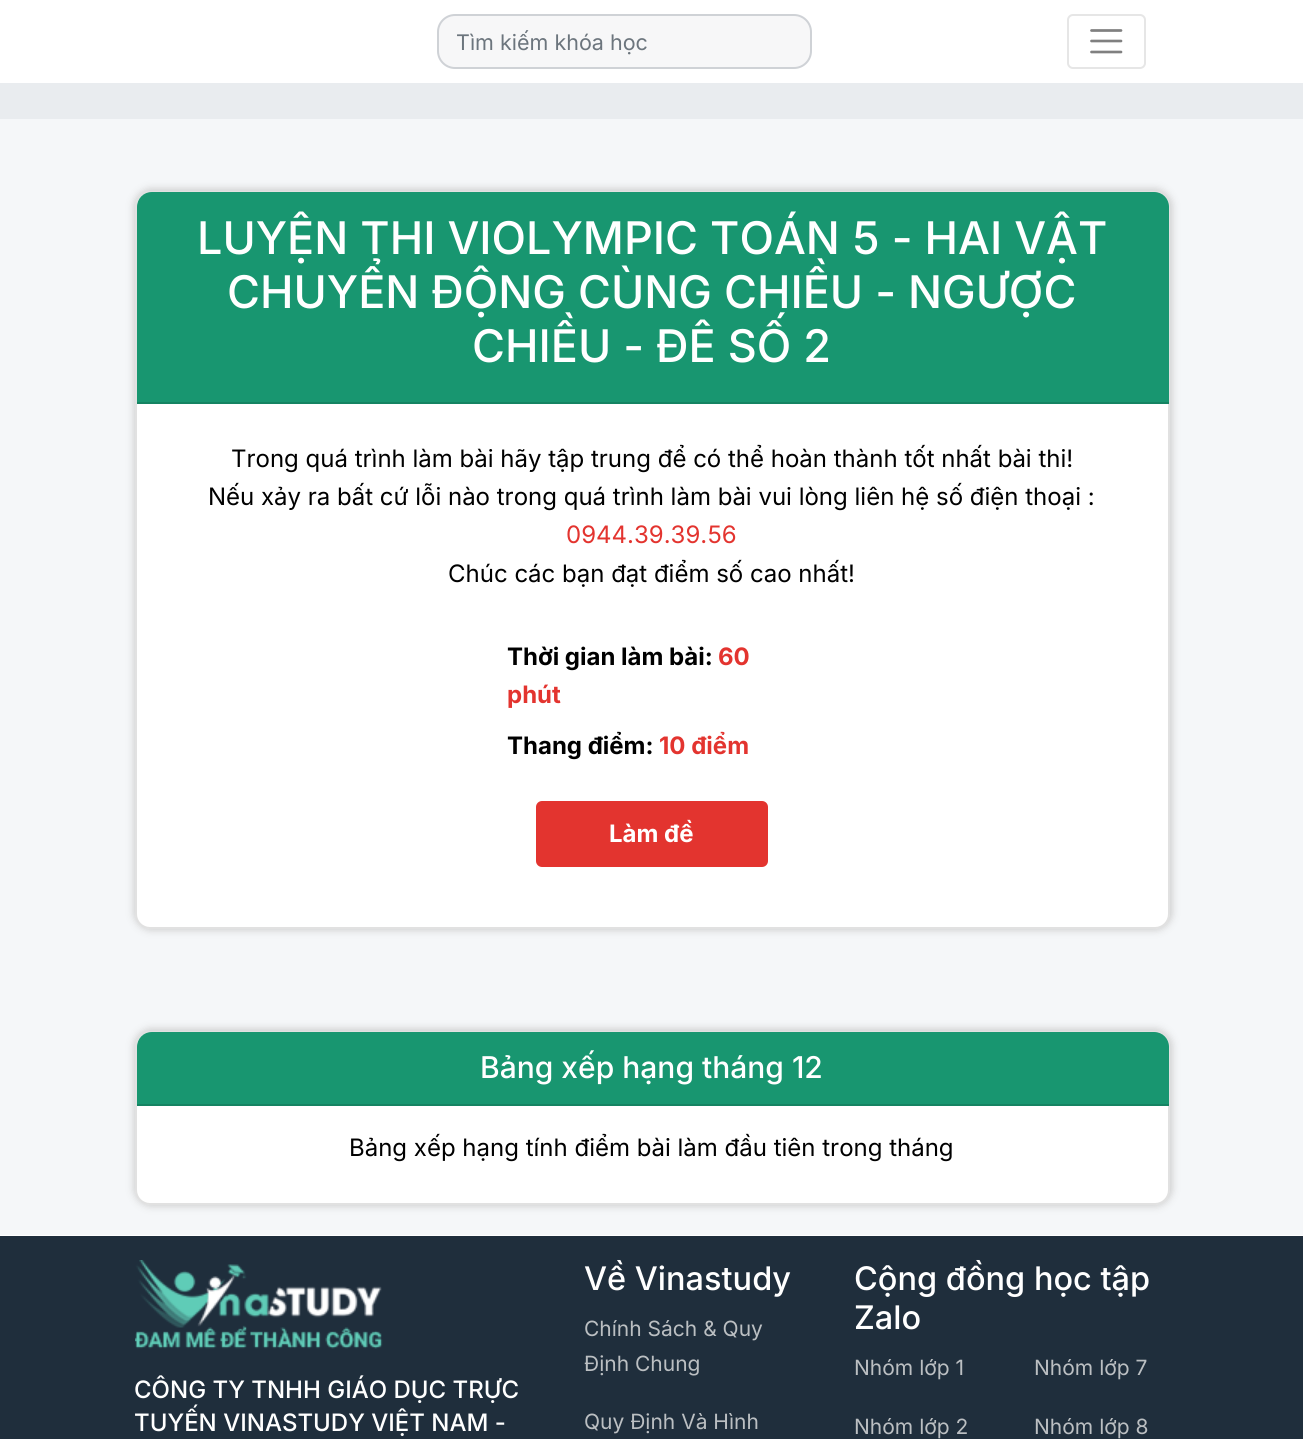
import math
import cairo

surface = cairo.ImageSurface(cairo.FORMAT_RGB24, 1303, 1439)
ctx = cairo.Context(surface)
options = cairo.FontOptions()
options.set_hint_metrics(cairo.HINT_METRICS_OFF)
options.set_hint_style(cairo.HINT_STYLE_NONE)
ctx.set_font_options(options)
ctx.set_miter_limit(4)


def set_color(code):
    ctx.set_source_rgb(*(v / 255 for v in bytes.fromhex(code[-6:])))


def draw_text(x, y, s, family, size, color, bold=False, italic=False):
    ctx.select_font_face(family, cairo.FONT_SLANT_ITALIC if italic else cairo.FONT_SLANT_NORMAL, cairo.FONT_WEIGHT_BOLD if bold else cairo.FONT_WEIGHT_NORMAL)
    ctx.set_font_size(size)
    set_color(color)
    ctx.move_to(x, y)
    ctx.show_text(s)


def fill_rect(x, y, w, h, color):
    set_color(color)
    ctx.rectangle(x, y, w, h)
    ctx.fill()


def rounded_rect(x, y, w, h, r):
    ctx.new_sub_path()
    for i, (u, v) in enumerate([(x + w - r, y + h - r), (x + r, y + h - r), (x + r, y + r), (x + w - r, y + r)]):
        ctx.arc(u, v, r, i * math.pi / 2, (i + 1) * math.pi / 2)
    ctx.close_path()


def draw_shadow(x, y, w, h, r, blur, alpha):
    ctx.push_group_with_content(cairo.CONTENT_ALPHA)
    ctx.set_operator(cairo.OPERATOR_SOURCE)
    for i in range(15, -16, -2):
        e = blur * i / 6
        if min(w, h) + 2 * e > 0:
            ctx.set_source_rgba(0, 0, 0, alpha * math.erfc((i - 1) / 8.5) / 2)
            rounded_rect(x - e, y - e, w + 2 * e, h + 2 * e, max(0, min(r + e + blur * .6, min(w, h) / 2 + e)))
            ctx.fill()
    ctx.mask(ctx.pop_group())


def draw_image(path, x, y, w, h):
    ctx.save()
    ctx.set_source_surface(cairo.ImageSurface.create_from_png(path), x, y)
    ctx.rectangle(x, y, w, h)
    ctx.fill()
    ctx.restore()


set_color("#ffffff")
ctx.paint()
set_color("#f7f7f8")
rounded_rect(437, 14, 375, 55, 18)
ctx.fill()
rounded_rect(438, 15, 373, 53, 17)
ctx.set_source_rgba(0.18, 0.251, 0.314, 0.2)
ctx.stroke()
draw_text(456, 50, "Tìm kiếm khóa học", "Inter", 21.5, "#6c757d")
rounded_rect(1068, 15, 77, 53, 5)
set_color("#e6e6e6")
ctx.stroke()
ctx.new_path()
ctx.move_to(1091.5, 30.5)
ctx.line_to(1121, 30.5)
ctx.move_to(1091.5, 41)
ctx.line_to(1121, 41)
ctx.move_to(1091.5, 52)
ctx.line_to(1121, 52)
set_color("#808080")
ctx.set_line_width(2.7)
ctx.set_line_cap(cairo.LINE_CAP_ROUND)
ctx.stroke()
fill_rect(0, 83, 1303, 36, "#e9ecef")
fill_rect(0, 119, 1303, 1116, "#f5f7f9")
set_color("#cccccc")
draw_shadow(134, 189, 1038, 741, 17, 4, 1)
set_color("#ffffff")
rounded_rect(135, 191, 1035, 738, 15)
ctx.fill()
rounded_rect(136, 192, 1033, 736, 14)
ctx.set_source_rgba(0, 0, 0, 0.12)
ctx.set_line_width(2)
ctx.set_line_cap(cairo.LINE_CAP_BUTT)
ctx.stroke()
set_color("#189670")
ctx.new_path()
ctx.move_to(152, 192)
ctx.line_to(1154, 192)
ctx.curve_to(1162.5, 192, 1169, 198.5, 1169, 207)
ctx.line_to(1169, 404)
ctx.line_to(137, 404)
ctx.line_to(137, 207)
ctx.curve_to(137, 198.5, 143.5, 192, 152, 192)
ctx.close_path()
ctx.fill()
fill_rect(137, 402, 1032, 2, "#158362")
draw_text(197, 254, "LUYỆN THI VIOLYMPIC TOÁN 5 - HAI VẬT", "Inter Medium", 45, "#ffffff")
draw_text(227, 308, "CHUYỂN ĐỘNG CÙNG CHIỀU - NGƯỢC", "Inter Medium", 45, "#ffffff")
draw_text(472, 362, "CHIỀU - ĐÊ SỐ 2", "Inter Medium", 45, "#ffffff")
draw_text(231, 467, "Trong quá trình làm bài hãy tập trung để có thể hoàn thành tốt nhất bài thi!", "Inter", 24, "#000000")
draw_text(208, 505, "Nếu xảy ra bất cứ lỗi nào trong quá trình làm bài vui lòng liên hệ số điện thoại :", "Inter", 24, "#000000")
draw_text(566, 543, "0944.39.39.56", "Inter", 24, "#e3342f")
draw_text(448, 582, "Chúc các bạn đạt điểm số cao nhất!", "Inter", 24, "#000000")
draw_text(507, 665, "Thời gian làm bài:", "Inter", 24, "#000000", bold=True)
draw_text(718, 665, "60", "Inter", 24, "#e3342f", bold=True)
draw_text(507, 703, "phút", "Inter", 24, "#e3342f", bold=True)
draw_text(507, 754, "Thang điểm:", "Inter", 24, "#000000", bold=True)
draw_text(659, 754, "10 điểm", "Inter", 24, "#e3342f", bold=True)
rounded_rect(537, 802, 230, 64, 5)
ctx.fill_preserve()
ctx.stroke()
draw_text(609, 842, "Làm đề", "Inter", 24, "#ffffff", bold=True)
set_color("#cccccc")
draw_shadow(134, 1029, 1038, 177, 17, 4, 1)
set_color("#ffffff")
rounded_rect(135, 1031, 1035, 174, 15)
ctx.fill()
rounded_rect(136, 1032, 1033, 172, 14)
ctx.set_source_rgba(0, 0, 0, 0.12)
ctx.stroke()
set_color("#189670")
ctx.new_path()
ctx.move_to(152, 1032)
ctx.line_to(1154, 1032)
ctx.curve_to(1162.5, 1032, 1169, 1038.5, 1169, 1047)
ctx.line_to(1169, 1106)
ctx.line_to(137, 1106)
ctx.line_to(137, 1047)
ctx.curve_to(137, 1038.5, 143.5, 1032, 152, 1032)
ctx.close_path()
ctx.fill()
fill_rect(137, 1104, 1032, 2, "#158362")
draw_text(480, 1078, "Bảng xếp hạng tháng 12", "Inter Medium", 30, "#ffffff")
draw_text(349, 1156, "Bảng xếp hạng tính điểm bài làm đầu tiên trong tháng", "Inter", 24, "#000000")
fill_rect(0, 1236, 1303, 203, "#1f2e3c")
draw_image("assets/img1.png", 135, 1260, 248, 89)
draw_text(134, 1398, "CÔNG TY TNHH GIÁO DỤC TRỰC", "Inter Medium", 24, "#ffffff")
draw_text(134, 1431, "TUYẾN VINASTUDY VIỆT NAM -", "Inter Medium", 24, "#ffffff")
draw_text(584, 1290, "Về Vinastudy", "Inter Medium", 32.5, "#ffffff")
draw_text(584, 1336, "Chính Sách & Quy", "Inter", 21, "#bbbfc2")
draw_text(584, 1371, "Định Chung", "Inter", 21, "#bbbfc2")
draw_text(584, 1429, "Quy Định Và Hình", "Inter", 21, "#bbbfc2")
draw_text(854, 1290, "Cộng đồng học tập", "Inter Medium", 32.5, "#ffffff")
draw_text(854, 1329, "Zalo", "Inter Medium", 32.5, "#ffffff")
draw_text(854, 1375, "Nhóm lớp 1", "Inter", 21, "#bbbfc2")
draw_text(854, 1434, "Nhóm lớp 2", "Inter", 21, "#bbbfc2")
draw_text(1034, 1375, "Nhóm lớp 7", "Inter", 21, "#bbbfc2")
draw_text(1034, 1434, "Nhóm lớp 8", "Inter", 21, "#bbbfc2")
surface.write_to_png("output.png")
